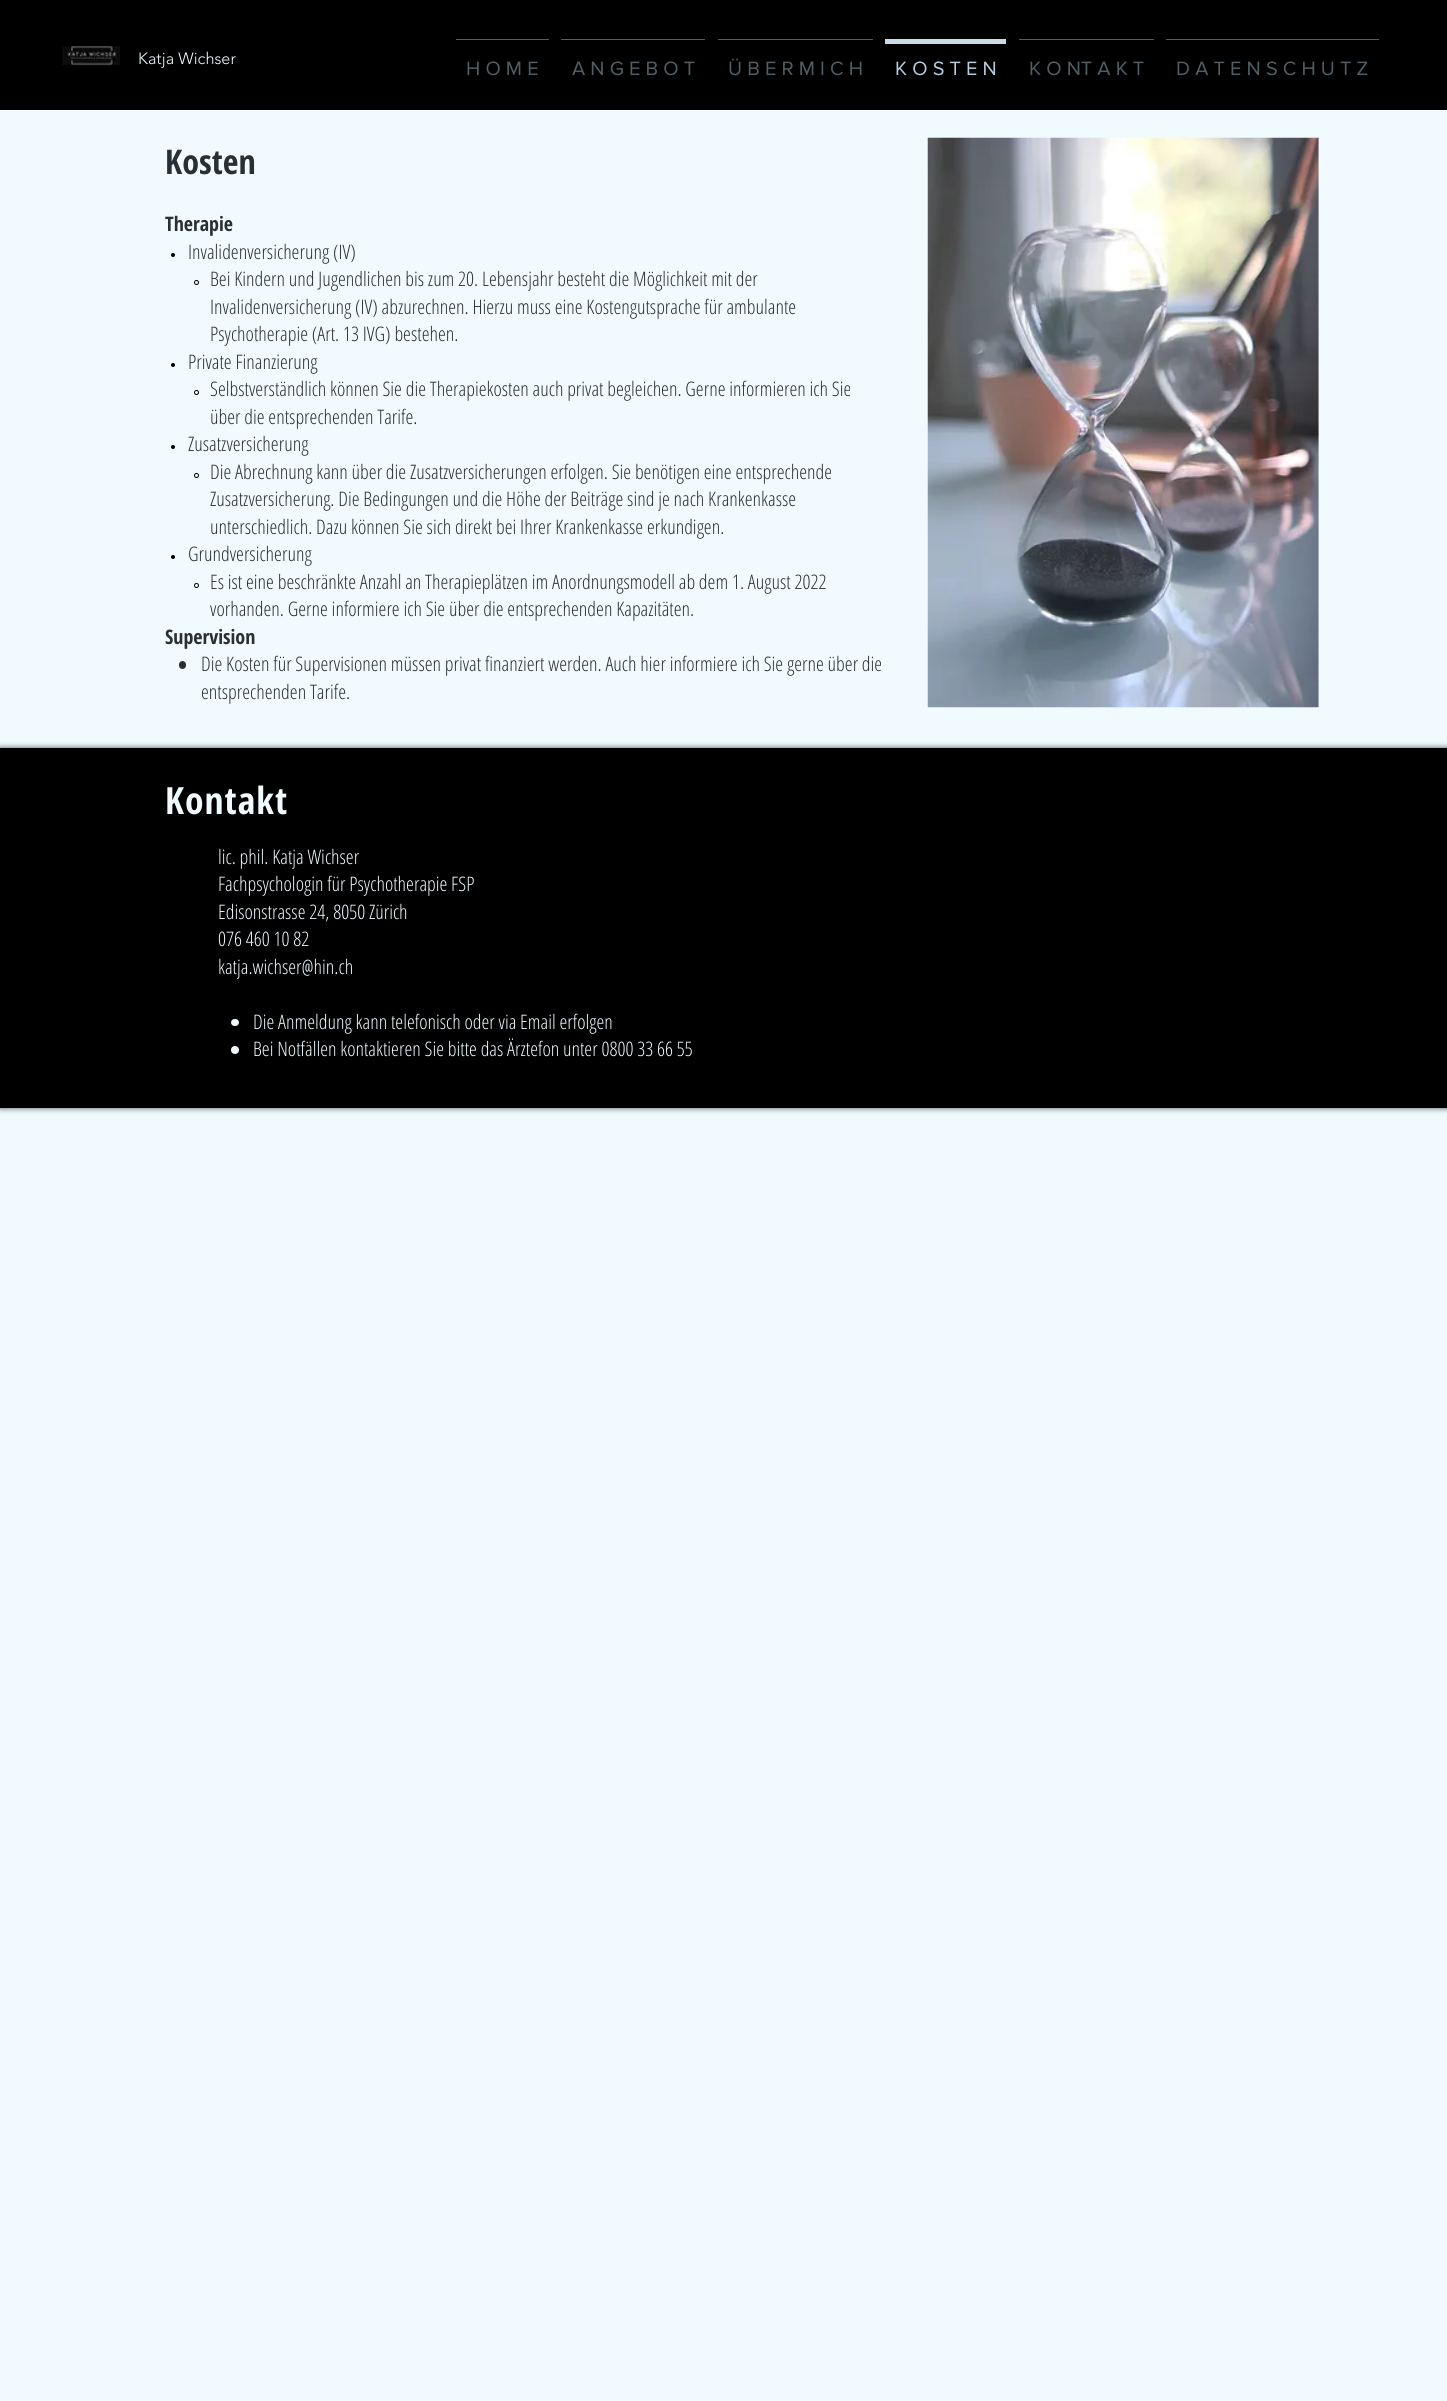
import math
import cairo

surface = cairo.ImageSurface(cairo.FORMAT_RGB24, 1447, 2401)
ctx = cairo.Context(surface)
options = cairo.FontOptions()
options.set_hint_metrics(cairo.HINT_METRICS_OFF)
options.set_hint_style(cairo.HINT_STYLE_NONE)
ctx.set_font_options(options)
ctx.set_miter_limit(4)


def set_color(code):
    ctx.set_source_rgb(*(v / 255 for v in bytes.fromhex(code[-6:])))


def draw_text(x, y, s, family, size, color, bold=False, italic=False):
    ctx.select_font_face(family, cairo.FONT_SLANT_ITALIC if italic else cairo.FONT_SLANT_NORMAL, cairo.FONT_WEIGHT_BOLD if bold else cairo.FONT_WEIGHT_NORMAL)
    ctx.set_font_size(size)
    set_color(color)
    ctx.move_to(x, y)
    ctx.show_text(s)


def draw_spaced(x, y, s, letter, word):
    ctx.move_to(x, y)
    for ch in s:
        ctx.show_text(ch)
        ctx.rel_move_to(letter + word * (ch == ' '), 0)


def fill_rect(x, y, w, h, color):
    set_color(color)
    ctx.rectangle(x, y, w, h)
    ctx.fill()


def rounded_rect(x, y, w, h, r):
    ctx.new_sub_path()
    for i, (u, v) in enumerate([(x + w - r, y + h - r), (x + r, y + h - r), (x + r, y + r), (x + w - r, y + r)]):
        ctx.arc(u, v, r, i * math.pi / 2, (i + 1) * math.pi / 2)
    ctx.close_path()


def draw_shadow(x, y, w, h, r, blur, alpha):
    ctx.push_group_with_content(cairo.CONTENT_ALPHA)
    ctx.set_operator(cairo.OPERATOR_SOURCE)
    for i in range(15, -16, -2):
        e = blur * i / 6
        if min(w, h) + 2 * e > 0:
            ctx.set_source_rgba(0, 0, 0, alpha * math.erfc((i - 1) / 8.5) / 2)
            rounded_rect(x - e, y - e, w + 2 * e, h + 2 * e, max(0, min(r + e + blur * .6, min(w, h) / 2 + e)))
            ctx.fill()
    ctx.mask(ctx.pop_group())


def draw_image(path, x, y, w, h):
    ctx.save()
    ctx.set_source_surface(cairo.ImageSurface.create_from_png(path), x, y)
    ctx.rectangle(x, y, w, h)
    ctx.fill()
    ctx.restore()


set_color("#f0faff")
ctx.paint()
fill_rect(0, 0, 1447, 110, "#000000")
draw_image("assets/img1.png", 62, 46, 58, 20)
draw_text(138, 64, "Katja Wichser", "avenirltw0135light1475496 Light", 16.25, "#f0faff")
fill_rect(456, 39, 93, 1, "#515e65")
draw_text(466, 75, "H O M E", "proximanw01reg", 20, "#515e65")
fill_rect(561, 39, 144, 1, "#515e65")
draw_text(572, 75, "A N G E B O T", "proximanw01reg", 20, "#515e65")
fill_rect(718, 39, 155, 1, "#515e65")
draw_text(728, 75, "Ü B E R M I C H", "proximanw01reg", 20, "#515e65")
fill_rect(885, 39, 121, 5, "#cadde6")
draw_text(895, 75, "K O S T E N", "proximanw01reg", 20, "#b6cde1")
fill_rect(1019, 39, 135, 1, "#515e65")
draw_text(1029, 75, "K O NT A K T", "proximanw01reg", 20, "#515e65")
fill_rect(1166, 39, 213, 1, "#515e65")
draw_text(1176, 75, "D A T E N S C H U T Z", "proximanw01reg", 20, "#515e65")
draw_text(165, 174, "Kosten", "Open Sans Condensed", 34, "#292f33", bold=True)
draw_image("assets/img2.png", 927, 137, 392, 571)
draw_text(165, 231, "Therapie", "Open Sans Condensed", 20, "#292f33", bold=True)
set_color("#000000")
ctx.new_path()
ctx.arc(173, 255, 2, 0, 2 * math.pi)
ctx.fill()
draw_text(188, 259, "Invalidenversicherung (IV)", "Open Sans Condensed Light", 20, "#292f33")
ctx.new_path()
ctx.arc(196.5, 282.5, 2, 0, 2 * math.pi)
set_color("#000000")
ctx.set_line_width(1)
ctx.stroke()
draw_text(210, 286, "Bei Kindern und Jugendlichen bis zum 20. Lebensjahr besteht die Möglichkeit mit der", "Open Sans Condensed Light", 20, "#292f33")
draw_text(210, 314, "Invalidenversicherung (IV) abzurechnen. Hierzu muss eine Kostengutsprache für ambulante", "Open Sans Condensed Light", 20, "#292f33")
draw_text(210, 341, "Psychotherapie (Art. 13 IVG) bestehen.", "Open Sans Condensed Light", 20, "#292f33")
set_color("#000000")
ctx.new_path()
ctx.arc(173, 365, 2, 0, 2 * math.pi)
ctx.fill()
draw_text(188, 369, "Private Finanzierung", "Open Sans Condensed Light", 20, "#292f33")
ctx.new_path()
ctx.arc(196.5, 392.5, 2, 0, 2 * math.pi)
set_color("#000000")
ctx.stroke()
draw_text(210, 396, "Selbstverständlich können Sie die Therapiekosten auch privat begleichen. Gerne informieren ich Sie", "Open Sans Condensed Light", 20, "#292f33")
draw_text(210, 424, "über die entsprechenden Tarife.", "Open Sans Condensed Light", 20, "#292f33")
set_color("#000000")
ctx.new_path()
ctx.arc(173, 447, 2, 0, 2 * math.pi)
ctx.fill()
draw_text(188, 451, "Zusatzversicherung", "Open Sans Condensed Light", 20, "#292f33")
ctx.new_path()
ctx.arc(196.5, 475.5, 2, 0, 2 * math.pi)
set_color("#000000")
ctx.stroke()
draw_text(210, 479, "Die Abrechnung kann über die Zusatzversicherungen erfolgen. Sie benötigen eine entsprechende", "Open Sans Condensed Light", 20, "#292f33")
draw_text(210, 506, "Zusatzversicherung. Die Bedingungen und die Höhe der Beiträge sind je nach Krankenkasse", "Open Sans Condensed Light", 20, "#292f33")
draw_text(210, 534, "unterschiedlich. Dazu können Sie sich direkt bei Ihrer Krankenkasse erkundigen.", "Open Sans Condensed Light", 20, "#292f33")
set_color("#000000")
ctx.new_path()
ctx.arc(173, 557, 2, 0, 2 * math.pi)
ctx.fill()
draw_text(188, 561, "Grundversicherung", "Open Sans Condensed Light", 20, "#292f33")
ctx.new_path()
ctx.arc(196.5, 585.5, 2, 0, 2 * math.pi)
set_color("#000000")
ctx.stroke()
draw_text(210, 589, "Es ist eine beschränkte Anzahl an Therapieplätzen im Anordnungsmodell ab dem 1. August 2022", "Open Sans Condensed Light", 20, "#292f33")
draw_text(210, 616, "vorhanden. Gerne informiere ich Sie über die entsprechenden Kapazitäten.", "Open Sans Condensed Light", 20, "#292f33")
draw_text(165, 644, "Supervision", "Open Sans Condensed", 20, "#292f33", bold=True)
rounded_rect(179, 661, 7, 8, 3.5)
ctx.fill()
draw_text(201, 671, "Die Kosten für Supervisionen müssen privat finanziert werden. Auch hier informiere ich Sie gerne über die", "Open Sans Condensed Light", 20, "#292f33")
draw_text(201, 699, "entsprechenden Tarife.", "Open Sans Condensed Light", 20, "#292f33")
set_color("#000000")
draw_shadow(0, 748, 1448, 360, 0, 3, 0.7)
fill_rect(0, 748, 1447, 360, "#000000")
ctx.select_font_face("Open Sans Condensed", cairo.FONT_SLANT_NORMAL, cairo.FONT_WEIGHT_BOLD)
ctx.set_font_size(37.5)
set_color("#f0faff")
draw_spaced(165, 814, "Kontakt", 1, 0)
draw_text(218, 864, "lic. phil. Katja Wichser", "Open Sans Condensed Light", 20, "#f0faff")
draw_text(218, 891, "Fachpsychologin für Psychotherapie FSP", "Open Sans Condensed Light", 20, "#f0faff")
draw_text(218, 919, "Edisonstrasse 24, 8050 Zürich", "Open Sans Condensed Light", 20, "#f0faff")
draw_text(218, 946, "076 460 10 82", "Open Sans Condensed Light", 20, "#f0faff")
draw_text(218, 974, "katja.wichser@hin.ch", "Open Sans Condensed Light", 20, "#f0faff")
rounded_rect(231, 1019, 8, 7, 3.5)
ctx.fill()
draw_text(253, 1029, "Die Anmeldung kann telefonisch oder via Email erfolgen", "Open Sans Condensed Light", 20, "#f0faff")
ctx.new_path()
ctx.arc(235, 1050, 4, 0, 2 * math.pi)
ctx.fill()
draw_text(253, 1056, "Bei Notfällen kontaktieren Sie bitte das Ärztefon unter 0800 33 66 55", "Open Sans Condensed Light", 20, "#f0faff")
surface.write_to_png("output.png")
